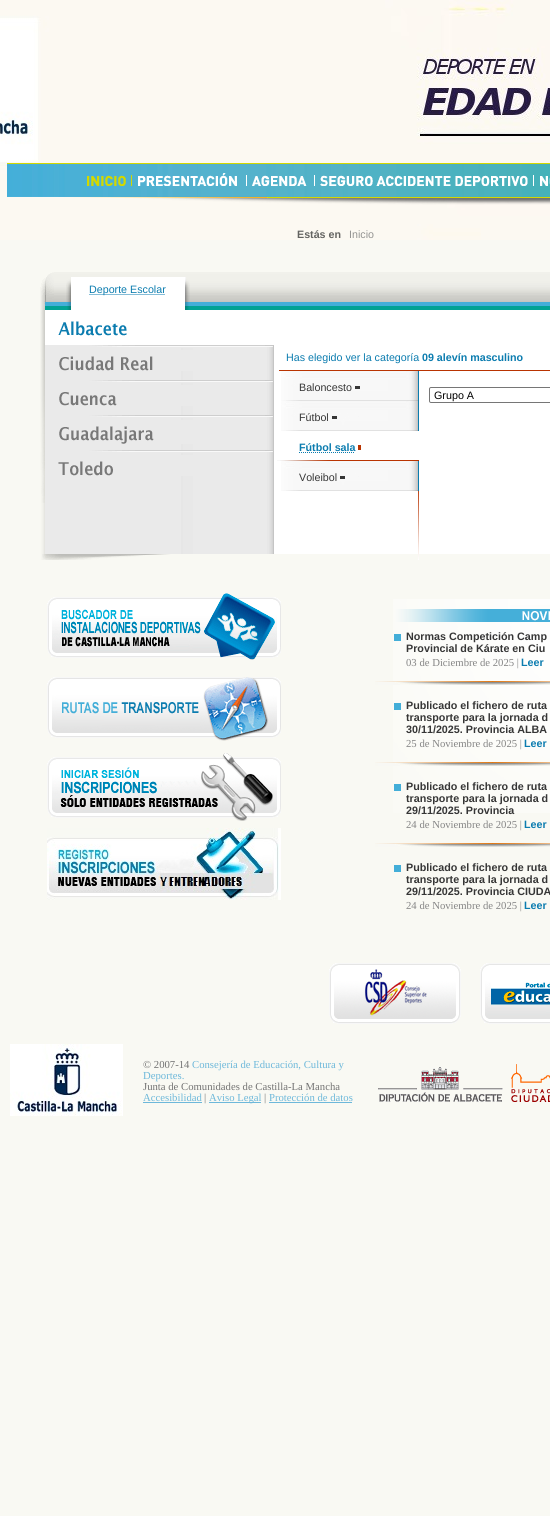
import math
import cairo

surface = cairo.ImageSurface(cairo.FORMAT_RGB24, 550, 1516)
ctx = cairo.Context(surface)
options = cairo.FontOptions()
options.set_hint_metrics(cairo.HINT_METRICS_OFF)
options.set_hint_style(cairo.HINT_STYLE_NONE)
ctx.set_font_options(options)
ctx.set_miter_limit(4)


def set_color(code):
    ctx.set_source_rgb(*(v / 255 for v in bytes.fromhex(code[-6:])))


def draw_text(x, y, s, family, size, color, bold=False, italic=False):
    ctx.select_font_face(family, cairo.FONT_SLANT_ITALIC if italic else cairo.FONT_SLANT_NORMAL, cairo.FONT_WEIGHT_BOLD if bold else cairo.FONT_WEIGHT_NORMAL)
    ctx.set_font_size(size)
    set_color(color)
    ctx.move_to(x, y)
    ctx.show_text(s)


def fill_rect(x, y, w, h, color):
    set_color(color)
    ctx.rectangle(x, y, w, h)
    ctx.fill()


def rounded_rect(x, y, w, h, r):
    ctx.new_sub_path()
    for i, (u, v) in enumerate([(x + w - r, y + h - r), (x + r, y + h - r), (x + r, y + r), (x + w - r, y + r)]):
        ctx.arc(u, v, r, i * math.pi / 2, (i + 1) * math.pi / 2)
    ctx.close_path()


def draw_image(path, x, y, w, h):
    ctx.save()
    ctx.set_source_surface(cairo.ImageSurface.create_from_png(path), x, y)
    ctx.rectangle(x, y, w, h)
    ctx.fill()
    ctx.restore()


set_color("#f9f9f3")
ctx.paint()
draw_image("assets/img1.png", 0, 0, 550, 240)
draw_image("assets/img2.png", 7, 163, 543, 42)
draw_image("assets/img3.png", 87, 175, 45, 11)
draw_image("assets/img4.png", 138, 173, 99, 13)
draw_image("assets/img5.png", 246, 175, 61, 11)
draw_image("assets/img6.png", 314, 175, 220, 11)
draw_image("assets/img7.png", 540, 176, 10, 10)
draw_text(297, 238, "Estás en", "Liberation Sans", 10.7, "#646461", bold=True)
draw_text(349, 238, "Inicio", "Liberation Sans", 10.7, "#949492")
fill_rect(274, 310, 276, 244, "#ffffff")
draw_image("assets/img8.png", 37, 272, 237, 288)
draw_image("assets/img9.png", 42, 554, 508, 6)
draw_image("assets/img10.png", 40, 272, 5, 231)
draw_image("assets/img11.png", 45, 272, 505, 38)
draw_image("assets/img12.png", 45, 272, 9, 30)
draw_image("assets/img13.png", 66, 277, 124, 33)
ctx.new_path()
ctx.move_to(89.5, 294.5)
ctx.line_to(165.5, 294.5)
set_color("#0b7caf")
ctx.set_line_width(1)
ctx.set_dash([1, 1])
ctx.stroke()
draw_text(89, 293, "Deporte Escolar", "Liberation Sans", 10.7, "#0b7caf")
draw_image("assets/img14.png", 45, 310, 229, 35)
draw_image("assets/img15.png", 59, 345, 214, 26)
draw_image("assets/img16.png", 59, 380, 214, 26)
draw_image("assets/img17.png", 59, 415, 214, 29)
draw_image("assets/img18.png", 58, 450, 215, 26)
fill_rect(279, 370, 271, 1, "#b93401")
draw_text(286, 361, "Has elegido ver la categoría", "Liberation Sans", 10.7, "#0b7caf")
draw_text(422, 361, "09 alevín masculino", "Liberation Sans", 10.7, "#0b7caf", bold=True)
draw_image("assets/img19.png", 418, 491, 1, 69)
draw_image("assets/img20.png", 281, 371, 137, 30)
fill_rect(418, 371, 1, 60, "#0b7caf")
draw_text(299, 391, "Baloncesto", "Liberation Sans", 10.7, "#363636")
fill_rect(355, 386, 5, 3, "#363636")
draw_image("assets/img20.png", 281, 401, 137, 30)
draw_text(299, 421, "Fútbol", "Liberation Sans", 10.7, "#363636")
fill_rect(332, 416, 5, 3, "#363636")
draw_image("assets/img21.png", 277, 460, 142, 1)
draw_text(299, 451, "Fútbol sala", "Liberation Sans", 10.7, "#0b7caf", bold=True)
ctx.new_path()
ctx.move_to(299, 452.5)
ctx.line_to(355, 452.5)
ctx.stroke()
fill_rect(358, 445, 3, 5, "#b93401")
draw_image("assets/img20.png", 281, 461, 137, 30)
fill_rect(418, 461, 1, 30, "#0b7caf")
draw_text(299, 481, "Voleibol", "Liberation Sans", 10.7, "#363636")
fill_rect(340, 476, 5, 3, "#363636")
rounded_rect(429.5, 387.5, 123, 15, 1.5)
set_color("#767676")
ctx.set_dash([])
ctx.stroke()
draw_text(434, 399, "Grupo A", "Liberation Sans", 10.75, "#000000")
draw_image("assets/img22.png", 47, 593, 234, 67)
draw_image("assets/img23.png", 47, 677, 234, 64)
draw_image("assets/img24.png", 47, 753, 234, 68)
draw_image("assets/img25.png", 47, 828, 234, 72)
draw_image("assets/img26.png", 393, 599, 157, 214)
fill_rect(394, 634, 7, 7, "#43aed8")
draw_text(406, 640, "Normas Competición Camp", "Liberation Sans", 10.75, "#363636", bold=True)
draw_text(406, 652, "Provincial de Kárate en Ciu", "Liberation Sans", 10.75, "#363636", bold=True)
draw_text(406, 666, "03 de Diciembre de 2025 |", "Liberation Serif", 10.7, "#858585")
draw_text(521, 666, "Leer", "Liberation Sans", 10.7, "#0b7caf", bold=True)
draw_image("assets/img27.png", 375, 681, 175, 4)
fill_rect(394, 703, 7, 7, "#43aed8")
draw_text(406, 709, "Publicado el fichero de ruta", "Liberation Sans", 10.75, "#363636", bold=True)
draw_text(406, 721, "transporte para la jornada d", "Liberation Sans", 10.75, "#363636", bold=True)
draw_text(406, 733, "30/11/2025. Provincia ALBA", "Liberation Sans", 10.75, "#363636", bold=True)
draw_text(406, 747, "25 de Noviembre de 2025 |", "Liberation Serif", 10.7, "#858585")
draw_text(524, 747, "Leer", "Liberation Sans", 10.7, "#0b7caf", bold=True)
draw_image("assets/img27.png", 375, 762, 175, 4)
fill_rect(394, 784, 7, 7, "#43aed8")
draw_text(406, 790, "Publicado el fichero de ruta", "Liberation Sans", 10.75, "#363636", bold=True)
draw_text(406, 802, "transporte para la jornada d", "Liberation Sans", 10.75, "#363636", bold=True)
draw_text(406, 814, "29/11/2025. Provincia", "Liberation Sans", 10.75, "#363636", bold=True)
draw_text(406, 828, "24 de Noviembre de 2025 |", "Liberation Serif", 10.7, "#858585")
draw_text(524, 828, "Leer", "Liberation Sans", 10.7, "#0b7caf", bold=True)
draw_image("assets/img27.png", 375, 843, 175, 4)
fill_rect(394, 865, 7, 7, "#43aed8")
draw_text(406, 871, "Publicado el fichero de ruta", "Liberation Sans", 10.75, "#363636", bold=True)
draw_text(406, 883, "transporte para la jornada d", "Liberation Sans", 10.75, "#363636", bold=True)
draw_text(406, 895, "29/11/2025. Provincia CIUDA", "Liberation Sans", 10.75, "#363636", bold=True)
draw_text(406, 909, "24 de Noviembre de 2025 |", "Liberation Serif", 10.7, "#858585")
draw_text(524, 909, "Leer", "Liberation Sans", 10.7, "#0b7caf", bold=True)
draw_image("assets/img28.png", 329, 963, 132, 61)
draw_image("assets/img29.png", 480, 963, 70, 61)
draw_image("assets/img30.png", 10, 1044, 113, 72)
draw_text(143, 1068, "© 2007-14", "Liberation Serif", 10.7, "#737373")
draw_text(192, 1068, "Consejería de Educación, Cultura y", "Liberation Serif", 10.7, "#6db8da")
draw_text(143, 1079, "Deportes.", "Liberation Serif", 10.7, "#6db8da")
draw_text(143, 1090, "Junta de Comunidades de Castilla-La Mancha", "Liberation Serif", 10.7, "#737373")
draw_text(143, 1101, "Accesibilidad", "Liberation Serif", 10.7, "#6db8da")
fill_rect(143, 1102, 59, 1, "#6db8da")
draw_text(204, 1101, "|", "Liberation Serif", 10.7, "#737373")
fill_rect(209, 1102, 52, 1, "#6db8da")
draw_text(209, 1101, "Aviso Legal", "Liberation Serif", 10.7, "#6db8da")
draw_text(264, 1101, "|", "Liberation Serif", 10.7, "#737373")
draw_text(269, 1101, "Protección de datos", "Liberation Serif", 10.7, "#6db8da")
fill_rect(269, 1102, 83, 1, "#6db8da")
draw_image("assets/img31.png", 378, 1067, 125, 35)
draw_image("assets/img32.png", 511, 1064, 39, 38)
surface.write_to_png("output.png")
